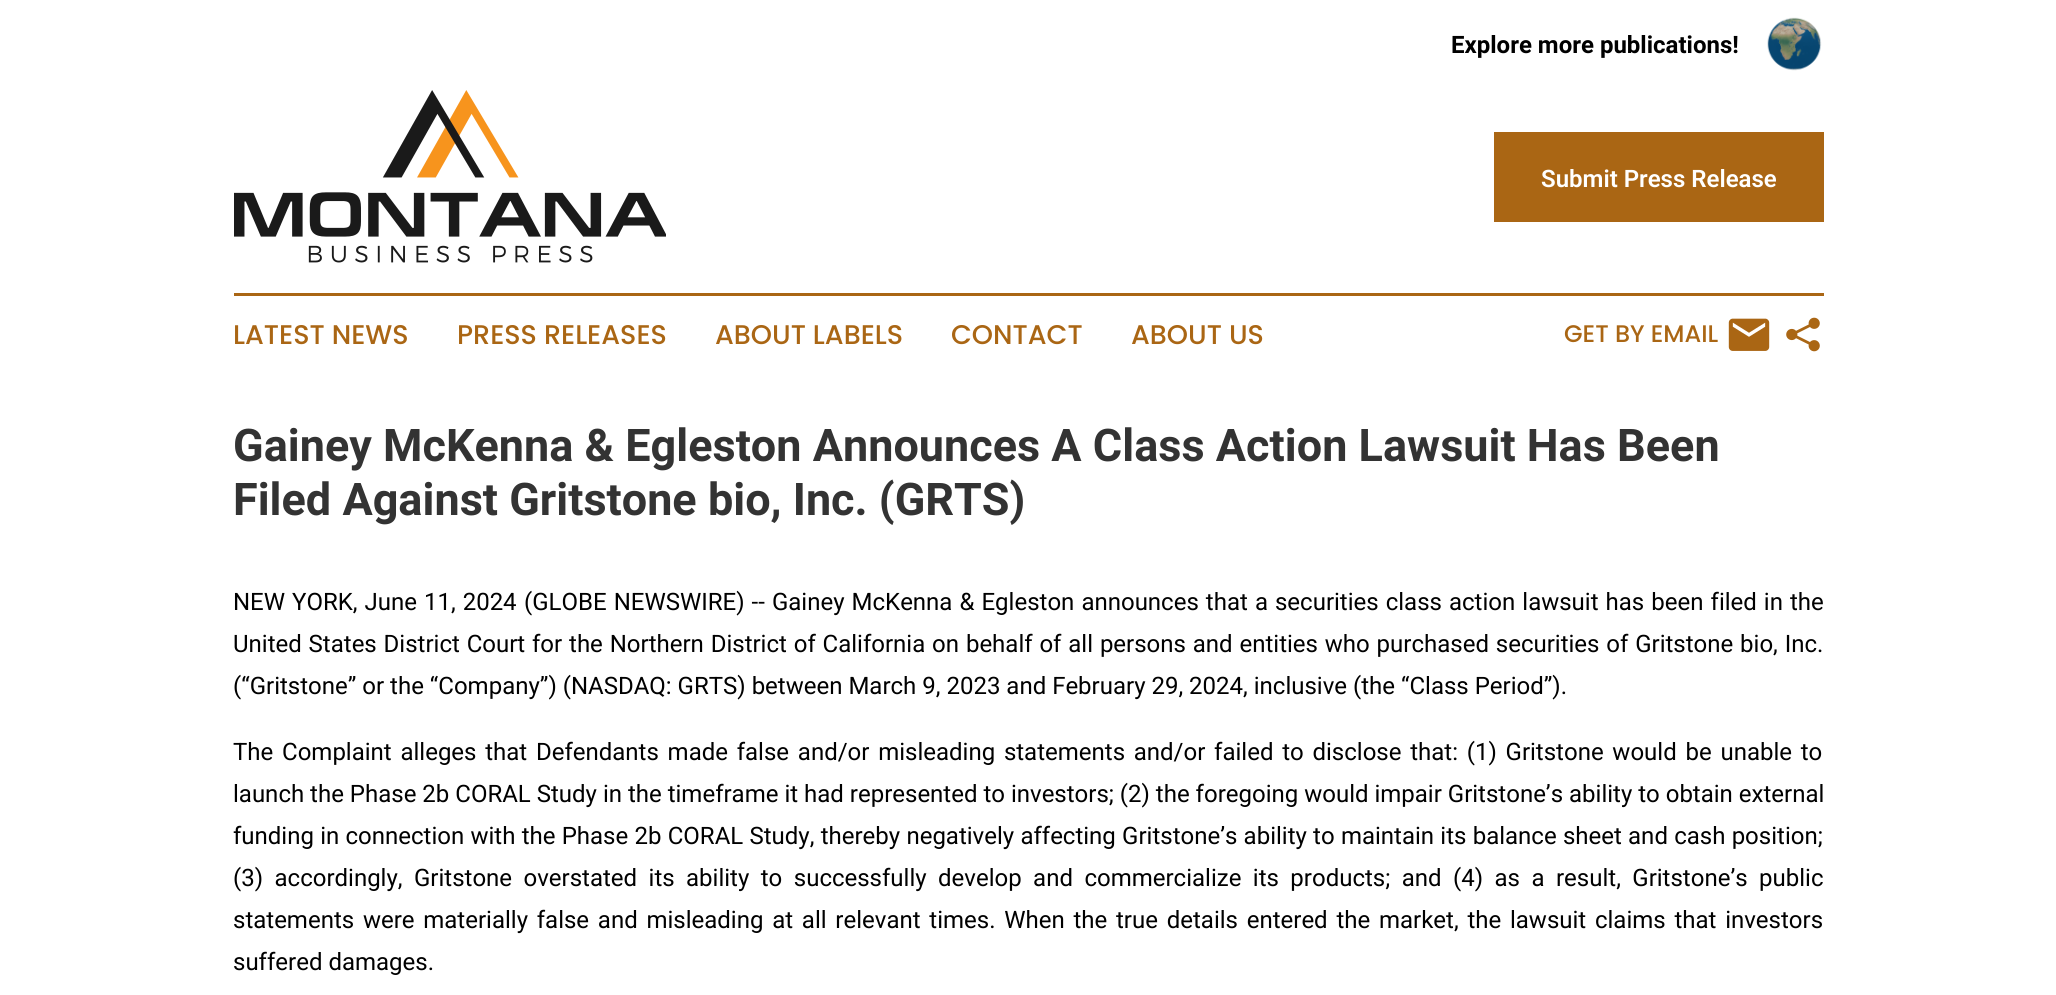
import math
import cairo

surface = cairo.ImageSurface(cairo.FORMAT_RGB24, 2056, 995)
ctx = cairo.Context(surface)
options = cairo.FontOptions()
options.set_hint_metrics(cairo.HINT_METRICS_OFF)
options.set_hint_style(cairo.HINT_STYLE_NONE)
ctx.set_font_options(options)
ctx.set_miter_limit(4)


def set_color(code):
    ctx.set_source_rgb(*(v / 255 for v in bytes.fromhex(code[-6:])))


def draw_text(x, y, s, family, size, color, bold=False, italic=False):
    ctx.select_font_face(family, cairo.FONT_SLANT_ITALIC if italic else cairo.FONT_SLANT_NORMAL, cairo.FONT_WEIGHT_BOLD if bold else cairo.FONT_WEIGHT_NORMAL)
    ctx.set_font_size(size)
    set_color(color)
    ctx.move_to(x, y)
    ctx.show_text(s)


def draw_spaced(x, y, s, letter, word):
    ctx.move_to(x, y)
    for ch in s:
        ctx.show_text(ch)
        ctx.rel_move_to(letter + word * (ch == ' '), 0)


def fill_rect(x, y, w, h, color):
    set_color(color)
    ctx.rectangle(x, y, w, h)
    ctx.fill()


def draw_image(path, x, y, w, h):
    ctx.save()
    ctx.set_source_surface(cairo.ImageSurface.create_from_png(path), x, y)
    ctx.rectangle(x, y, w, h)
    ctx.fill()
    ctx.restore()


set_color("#ffffff")
ctx.paint()
draw_text(1451, 53, "Explore more publications!", "Roboto", 24, "#000000", bold=True)
draw_image("assets/img1.png", 1767, 17, 55, 54)
draw_image("assets/img2.png", 234, 90, 432, 173)
fill_rect(1494, 132, 330, 90, "#aa6614")
draw_text(1541, 187, "Submit Press Release", "Roboto SemiBold", 24, "#ffffff")
fill_rect(234, 293, 1590, 3, "#aa6614")
draw_text(233, 344, "LATEST NEWS", "Poppins Medium", 27, "#aa6614")
draw_text(457, 344, "PRESS RELEASES", "Poppins Medium", 27, "#aa6614")
draw_text(715, 344, "ABOUT LABELS", "Poppins Medium", 27, "#aa6614")
draw_text(951, 344, "CONTACT", "Poppins Medium", 27, "#aa6614")
draw_text(1131, 344, "ABOUT US", "Poppins Medium", 27, "#aa6614")
draw_text(1564, 342, "GET BY EMAIL", "Poppins Medium", 24, "#aa6614")
draw_image("assets/img3.png", 1728, 318, 42, 33)
draw_image("assets/img4.png", 1786, 317, 34, 35)
draw_text(233, 461, "Gainey McKenna & Egleston Announces A Class Action Lawsuit Has Been", "Roboto", 45, "#333333", bold=True)
draw_text(233, 515, "Filed Against Gritstone bio, Inc. (GRTS)", "Roboto", 45, "#333333", bold=True)
ctx.select_font_face("Roboto")
ctx.set_font_size(24)
set_color("#000000")
draw_spaced(233, 610, "NEW YORK, June", 0, 1)
draw_spaced(424, 610, "11, 2024", 0, 1)
draw_spaced(524, 610, "(GLOBE NEWSWIRE) -- Gainey McKenna & Egleston announces that a securities class action lawsuit has been filed in the", 0, 1.1)
draw_spaced(233, 652, "United States District Court for the Northern District of California on behalf of all persons and entities who purchased securities of Gritstone bio, Inc.", 0, 0.9)
draw_text(233, 694, "(“Gritstone” or the “Company”) (NASDAQ: GRTS) between March 9, 2023 and February 29, 2024, inclusive (the “Class Period”).", "Roboto", 24, "#000000")
draw_spaced(233, 760, "The Complaint alleges that Defendants made false and/or misleading statements and/or failed to disclose that: (1) Gritstone would be unable to", 0, 2.8)
draw_text(233, 802, "launch the Phase 2b CORAL Study in the timeframe it had represented to investors; (2) the foregoing would impair Gritstone’s ability to obtain external", "Roboto", 24, "#000000")
draw_spaced(233, 844, "funding in connection with the Phase 2b CORAL Study, thereby negatively affecting Gritstone’s ability to maintain its balance sheet and cash position;", 0, 0.3)
draw_spaced(233, 886, "(3) accordingly, Gritstone overstated its ability to successfully develop and commercialize its products; and (4) as a result, Gritstone’s public", 0, 5.5)
draw_spaced(233, 928, "statements were materially false and misleading at all relevant times. When the true details entered the market, the lawsuit claims that investors", 0, 2.8)
draw_text(233, 970, "suffered damages.", "Roboto", 24, "#000000")
surface.write_to_png("output.png")
